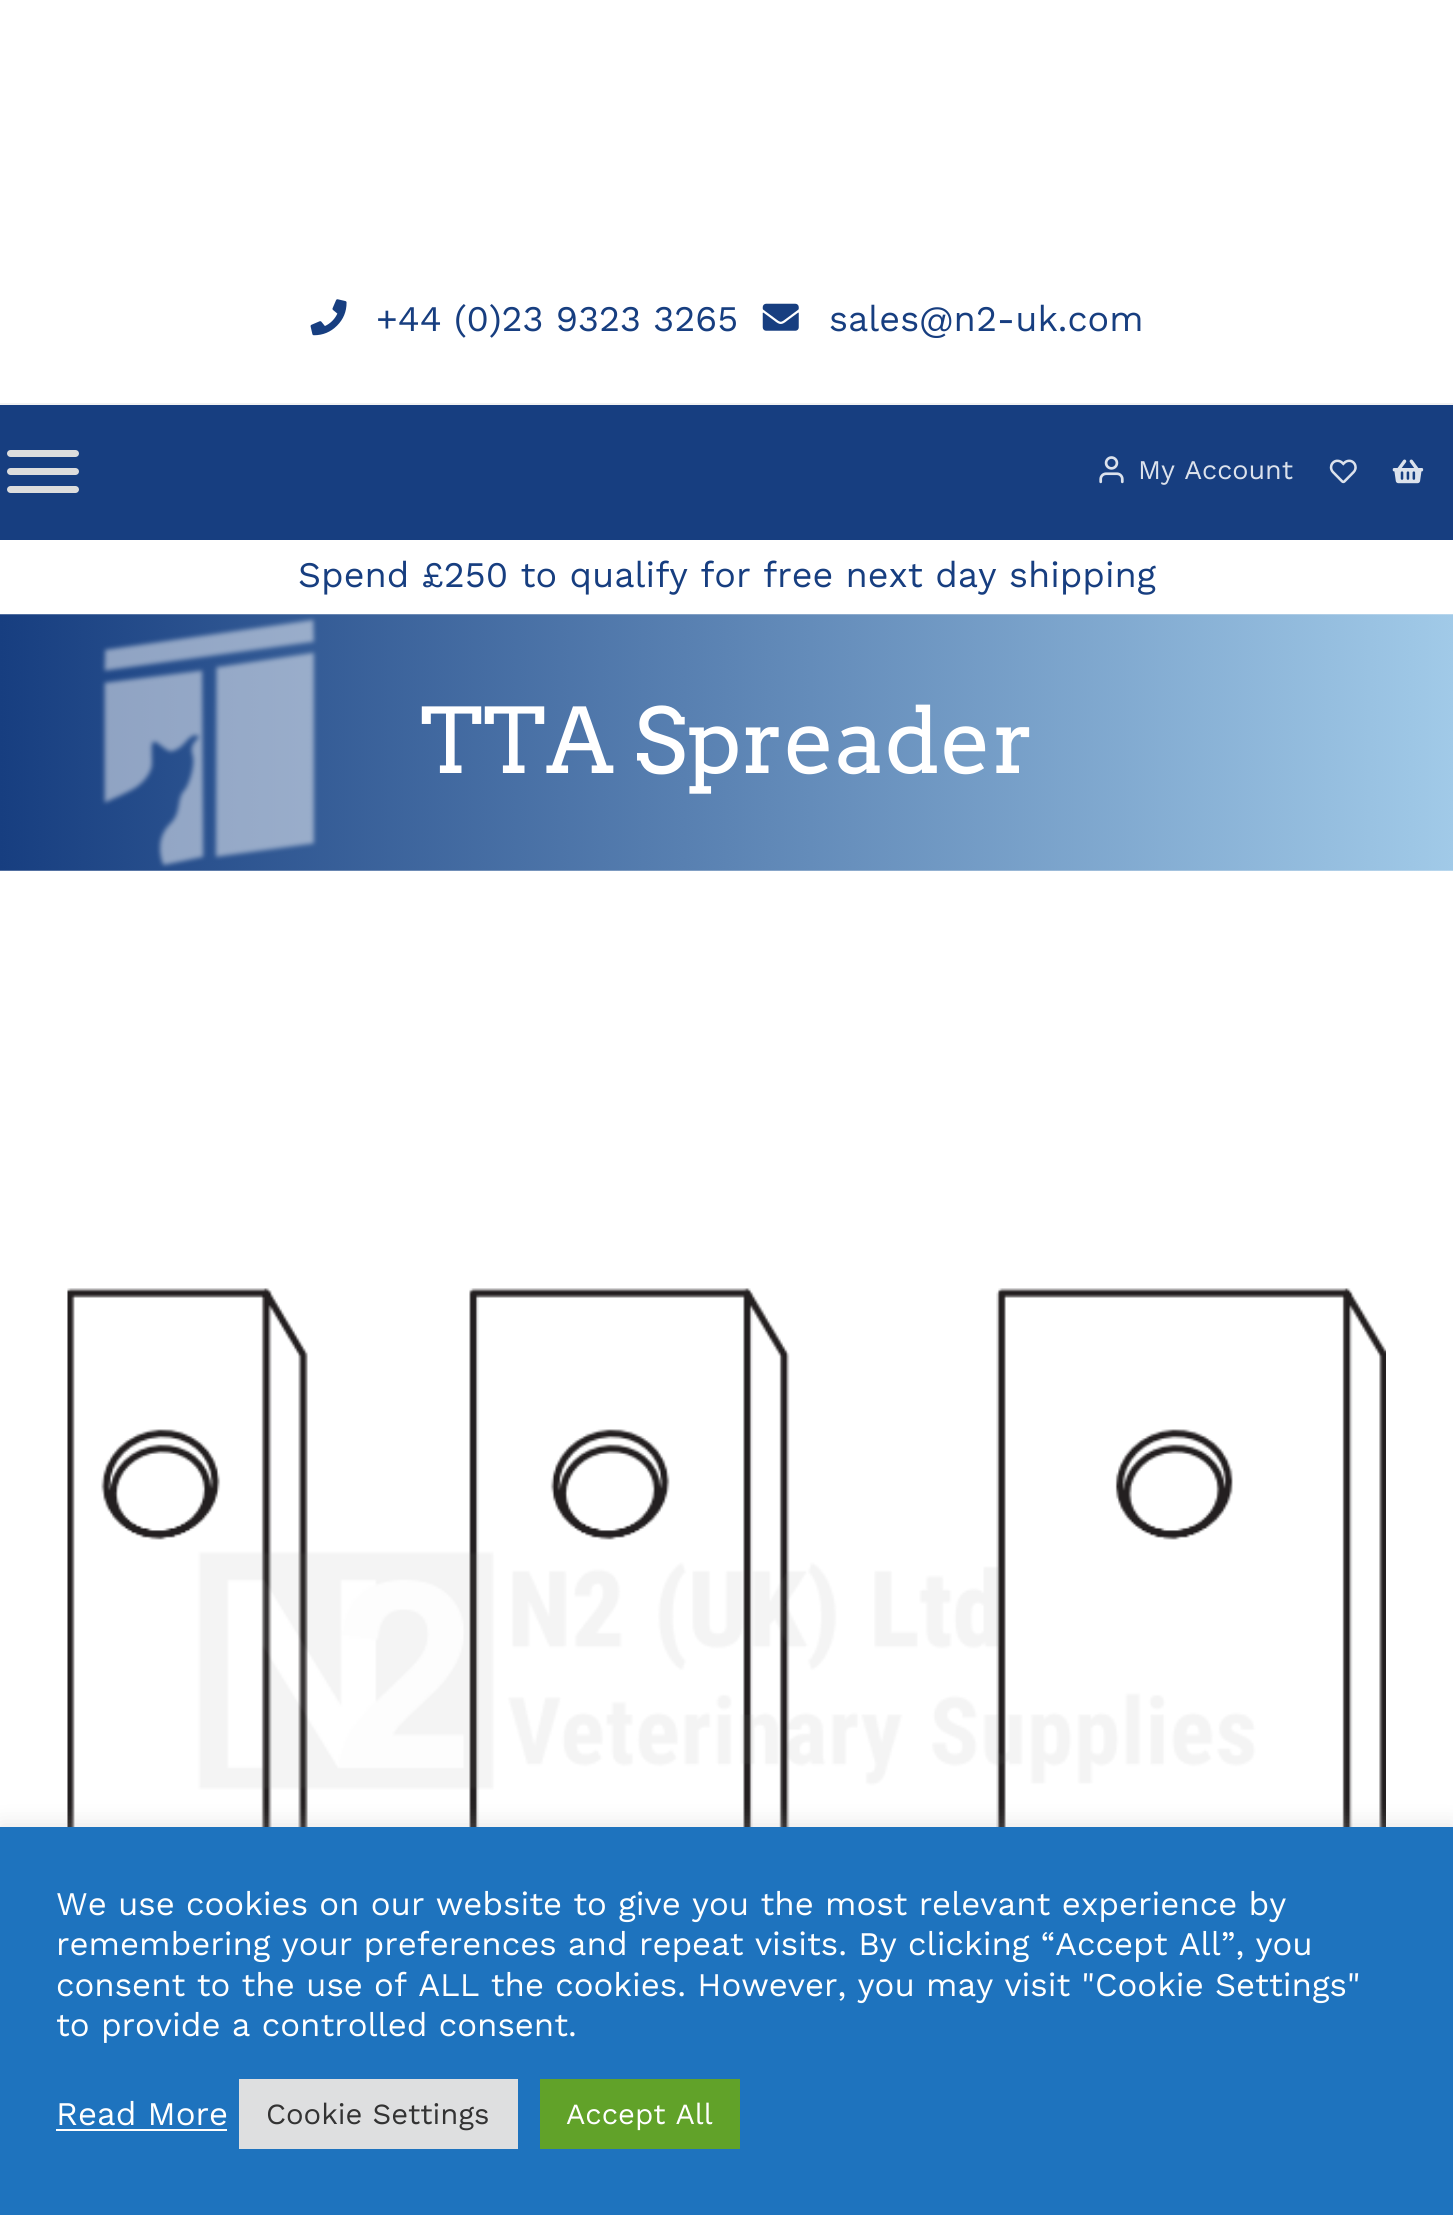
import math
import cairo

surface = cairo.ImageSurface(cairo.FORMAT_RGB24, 1453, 2215)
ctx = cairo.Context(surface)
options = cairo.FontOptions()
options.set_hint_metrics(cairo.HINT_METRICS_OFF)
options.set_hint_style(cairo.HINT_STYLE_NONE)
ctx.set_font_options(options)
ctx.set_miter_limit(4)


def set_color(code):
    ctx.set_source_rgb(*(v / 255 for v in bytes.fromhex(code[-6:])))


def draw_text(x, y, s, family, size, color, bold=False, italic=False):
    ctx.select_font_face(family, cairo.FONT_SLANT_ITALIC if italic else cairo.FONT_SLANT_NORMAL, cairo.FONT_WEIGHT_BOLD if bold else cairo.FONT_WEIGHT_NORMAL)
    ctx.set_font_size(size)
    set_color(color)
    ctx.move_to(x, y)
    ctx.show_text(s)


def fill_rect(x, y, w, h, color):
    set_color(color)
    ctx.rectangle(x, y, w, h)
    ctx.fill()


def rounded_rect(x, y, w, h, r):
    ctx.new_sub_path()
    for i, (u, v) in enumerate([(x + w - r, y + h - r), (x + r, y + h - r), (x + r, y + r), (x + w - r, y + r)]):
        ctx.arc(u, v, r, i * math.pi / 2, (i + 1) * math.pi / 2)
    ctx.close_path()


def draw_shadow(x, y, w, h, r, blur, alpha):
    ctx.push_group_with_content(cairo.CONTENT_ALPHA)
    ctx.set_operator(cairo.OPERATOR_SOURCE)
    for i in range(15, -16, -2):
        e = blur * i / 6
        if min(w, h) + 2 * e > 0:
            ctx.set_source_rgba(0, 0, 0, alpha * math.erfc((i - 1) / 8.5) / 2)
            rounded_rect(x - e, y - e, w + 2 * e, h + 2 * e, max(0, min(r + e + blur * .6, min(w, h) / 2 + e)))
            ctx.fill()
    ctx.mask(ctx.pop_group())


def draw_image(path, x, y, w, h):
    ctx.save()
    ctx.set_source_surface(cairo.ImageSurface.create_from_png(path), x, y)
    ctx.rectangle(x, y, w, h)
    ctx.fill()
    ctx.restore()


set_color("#ffffff")
ctx.paint()
fill_rect(0, 403, 1453, 2, "#f2f2f2")
draw_image("assets/img1.png", 310, 299, 37, 37)
draw_text(376, 331, "+44 (0)23 9323 3265", "Work Sans", 36, "#173e80")
draw_image("assets/img2.png", 762, 303, 37, 28)
draw_text(829, 331, "sales@n2-uk.com", "Work Sans", 36, "#173e80")
fill_rect(0, 405, 1453, 135, "#173e80")
set_color("#dddddd")
rounded_rect(7, 450, 72, 7, 3.5)
ctx.fill()
rounded_rect(7, 468, 72, 7, 3.5)
ctx.fill()
rounded_rect(7, 486, 72, 7, 3.5)
ctx.fill()
draw_image("assets/img3.png", 1099, 456, 25, 28)
draw_text(1138, 479, "My Account", "Work Sans", 27, "#dce2ec")
draw_image("assets/img4.png", 1329, 459, 28, 25)
draw_image("assets/img5.png", 1392, 459, 32, 25)
draw_text(298, 587, "Spend £250 to qualify for free next day shipping", "Work Sans", 36, "#173e80")
draw_image("assets/img6.png", 0, 614, 1453, 257)
draw_text(420, 773, "TTA Spreader", "Arvo", 90, "#ffffff")
draw_image("assets/img7.png", 67, 1288, 1319, 539)
set_color("#acabab")
draw_shadow(0, 1825, 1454, 389, 0, 11, 0.3)
fill_rect(0, 1827, 1453, 388, "#1e73be")
draw_text(56, 1915, "We use cookies on our website to give you the most relevant experience by", "Work Sans", 33, "#ffffff")
draw_text(56, 1955, "remembering your preferences and repeat visits. By clicking “Accept All”, you", "Work Sans", 33, "#ffffff")
draw_text(56, 1996, "consent to the use of ALL the cookies. However, you may visit \"Cookie Settings\"", "Work Sans", 33, "#ffffff")
draw_text(56, 2036, "to provide a controlled consent.", "Work Sans", 33, "#ffffff")
draw_text(56, 2125, "Read More", "Work Sans", 33, "#ffffff")
fill_rect(56, 2129, 171, 2, "#ffffff")
fill_rect(239, 2079, 279, 70, "#dedfe0")
draw_text(266, 2124, "Cookie Settings", "Work Sans", 29.25, "#333333")
fill_rect(540, 2079, 200, 70, "#61a229")
draw_text(566, 2124, "Accept All", "Work Sans", 29.25, "#ffffff")
surface.write_to_png("output.png")
